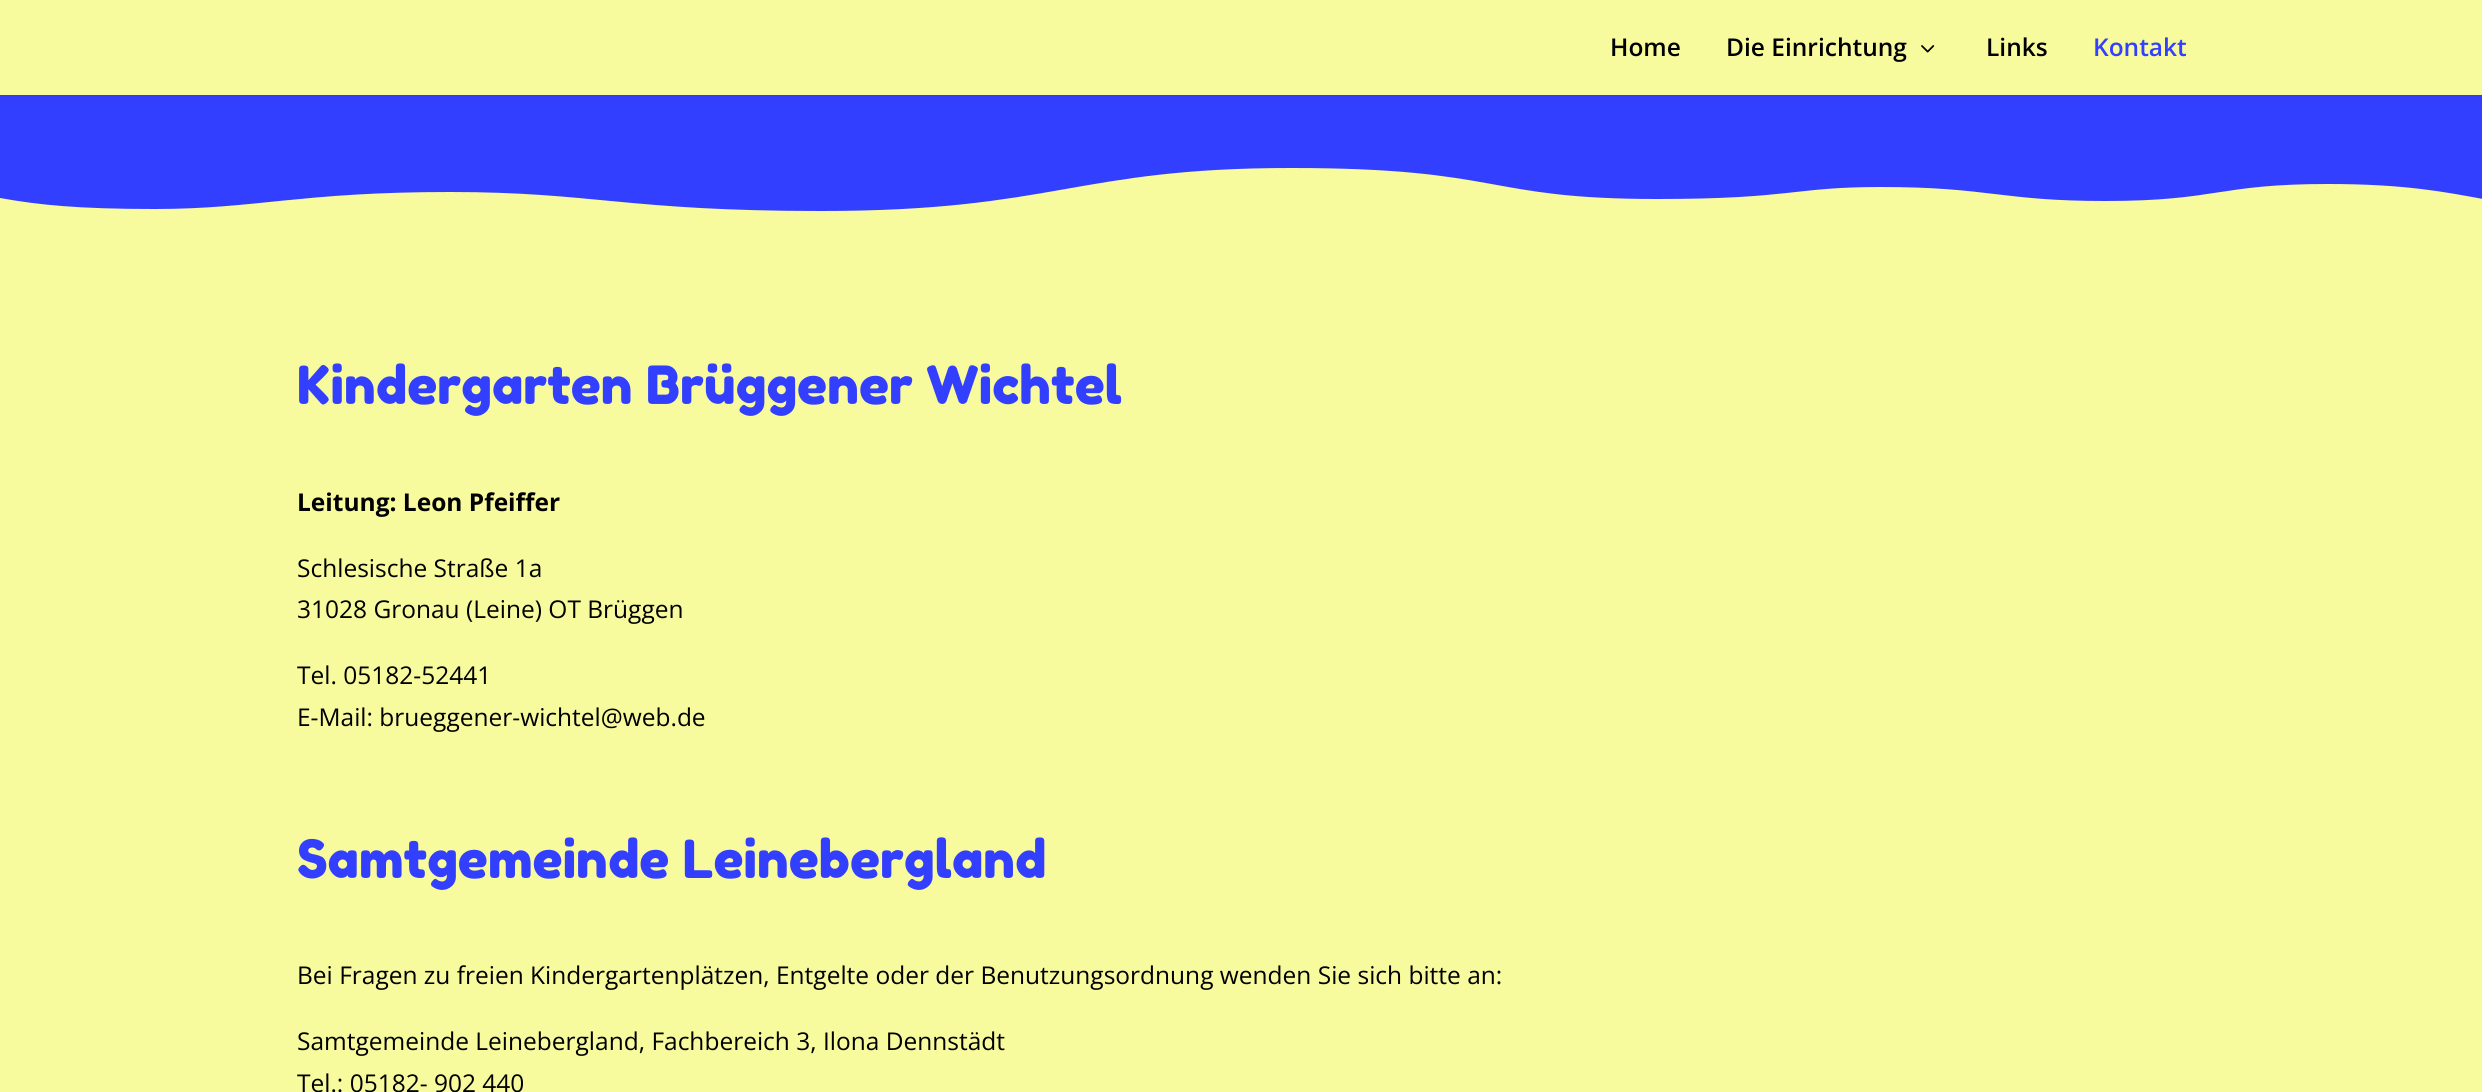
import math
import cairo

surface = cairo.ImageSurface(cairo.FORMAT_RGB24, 2482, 1092)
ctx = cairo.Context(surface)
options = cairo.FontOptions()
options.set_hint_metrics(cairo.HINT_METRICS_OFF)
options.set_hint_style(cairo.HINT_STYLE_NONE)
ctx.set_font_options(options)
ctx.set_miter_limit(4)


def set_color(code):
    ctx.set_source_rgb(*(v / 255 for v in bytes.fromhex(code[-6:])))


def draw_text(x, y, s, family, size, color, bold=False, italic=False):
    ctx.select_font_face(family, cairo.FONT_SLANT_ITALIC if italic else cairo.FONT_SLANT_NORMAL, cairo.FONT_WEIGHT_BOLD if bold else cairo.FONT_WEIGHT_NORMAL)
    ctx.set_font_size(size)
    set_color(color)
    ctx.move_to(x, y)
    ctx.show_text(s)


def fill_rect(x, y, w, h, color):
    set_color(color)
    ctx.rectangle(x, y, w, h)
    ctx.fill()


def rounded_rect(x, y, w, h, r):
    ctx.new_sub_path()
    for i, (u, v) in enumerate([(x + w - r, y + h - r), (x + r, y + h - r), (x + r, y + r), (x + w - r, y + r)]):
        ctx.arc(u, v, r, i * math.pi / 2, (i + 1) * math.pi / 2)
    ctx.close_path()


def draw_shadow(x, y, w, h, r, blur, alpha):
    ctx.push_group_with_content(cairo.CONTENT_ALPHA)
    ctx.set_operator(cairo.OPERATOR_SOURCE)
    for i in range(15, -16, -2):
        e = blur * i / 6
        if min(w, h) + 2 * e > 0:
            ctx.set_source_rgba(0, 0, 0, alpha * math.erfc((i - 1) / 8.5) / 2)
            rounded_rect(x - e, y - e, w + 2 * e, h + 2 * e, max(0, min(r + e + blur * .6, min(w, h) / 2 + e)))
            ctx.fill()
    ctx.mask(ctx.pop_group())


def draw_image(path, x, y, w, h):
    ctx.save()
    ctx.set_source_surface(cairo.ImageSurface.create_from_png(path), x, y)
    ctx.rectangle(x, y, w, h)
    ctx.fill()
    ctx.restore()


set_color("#333fff")
ctx.paint()
set_color("#000000")
draw_shadow(0, 0, 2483, 95, 0, 6, 0.1)
fill_rect(0, 0, 2482, 95, "#f7fa9d")
draw_text(1610, 56, "Home", "Open Sans SemiBold", 24.5, "#000000")
draw_text(1726, 56, "Die Einrichtung", "Open Sans SemiBold", 24.5, "#000000")
draw_image("assets/img1.png", 1921, 45, 14, 8)
draw_text(1986, 56, "Links", "Open Sans SemiBold", 24.5, "#000000")
draw_text(2093, 56, "Kontakt", "Open Sans SemiBold", 24.5, "#333fff")
ctx.save()
ctx.rectangle(0, 168, 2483, 49)
ctx.clip()
set_color("#f7fa9d")
ctx.new_path()
ctx.move_to(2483, 199)
ctx.curve_to(2445, 192, 2405, 184, 2328, 184)
ctx.curve_to(2217, 184, 2218, 201, 2105, 201)
ctx.curve_to(2001, 201, 1989, 187, 1881, 187)
ctx.curve_to(1792, 187, 1793, 199, 1657, 199)
ctx.curve_to(1483, 199, 1504, 168, 1291, 168)
ctx.curve_to(1075, 168, 1055, 211, 821, 211)
ctx.curve_to(626, 211, 593, 192, 450, 192)
ctx.curve_to(300, 192, 256, 209, 155, 209)
ctx.curve_to(78, 209, 39, 205, 0, 198)
ctx.line_to(0, 218)
ctx.line_to(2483, 218)
ctx.close_path()
ctx.fill()
ctx.restore()
fill_rect(0, 217, 2482, 875, "#f7fa9d")
draw_text(297, 404, "Kindergarten Brüggener Wichtel", "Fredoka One", 52.5, "#333fff")
draw_text(297, 511, "Leitung: Leon Pfeiffer", "Open Sans", 24.5, "#000000", bold=True)
draw_text(297, 577, "Schlesische Straße 1a", "Open Sans", 24.5, "#000000")
draw_text(297, 618, "31028 Gronau (Leine) OT Brüggen", "Open Sans", 24.5, "#000000")
draw_text(297, 684, "Tel. 05182-52441", "Open Sans", 24.5, "#000000")
draw_text(297, 726, "E-Mail: brueggener-wichtel@web.de", "Open Sans", 24.5, "#000000")
draw_text(297, 878, "Samtgemeinde Leinebergland", "Fredoka One", 52.5, "#333fff")
draw_text(297, 984, "Bei Fragen zu freien Kindergartenplätzen, Entgelte oder der Benutzungsordnung wenden Sie sich bitte an:", "Open Sans", 24.5, "#000000")
draw_text(297, 1050, "Samtgemeinde Leinebergland, Fachbereich 3, Ilona Dennstädt", "Open Sans", 24.5, "#000000")
draw_text(297, 1092, "Tel.: 05182- 902 440", "Open Sans", 24.5, "#000000")
surface.write_to_png("output.png")
